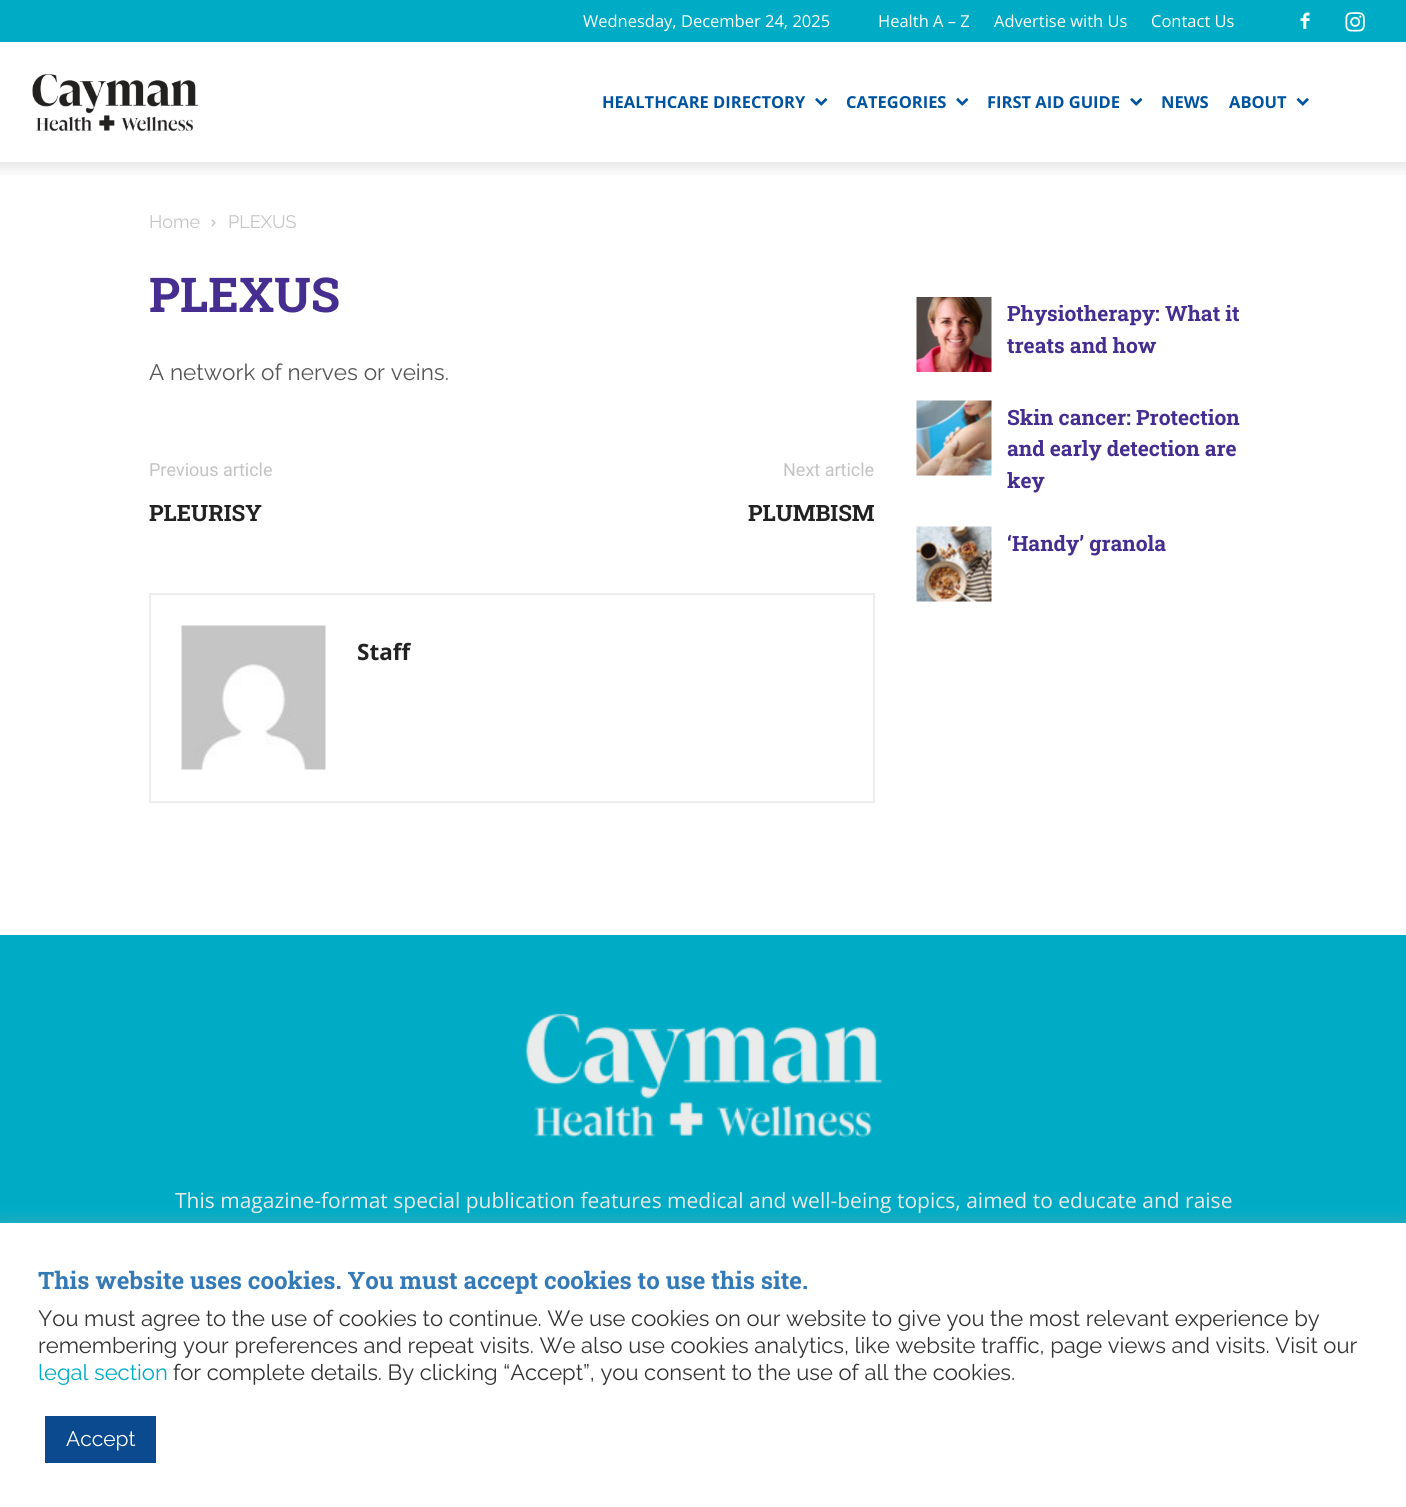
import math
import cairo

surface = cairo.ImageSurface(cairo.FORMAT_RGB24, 1406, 1507)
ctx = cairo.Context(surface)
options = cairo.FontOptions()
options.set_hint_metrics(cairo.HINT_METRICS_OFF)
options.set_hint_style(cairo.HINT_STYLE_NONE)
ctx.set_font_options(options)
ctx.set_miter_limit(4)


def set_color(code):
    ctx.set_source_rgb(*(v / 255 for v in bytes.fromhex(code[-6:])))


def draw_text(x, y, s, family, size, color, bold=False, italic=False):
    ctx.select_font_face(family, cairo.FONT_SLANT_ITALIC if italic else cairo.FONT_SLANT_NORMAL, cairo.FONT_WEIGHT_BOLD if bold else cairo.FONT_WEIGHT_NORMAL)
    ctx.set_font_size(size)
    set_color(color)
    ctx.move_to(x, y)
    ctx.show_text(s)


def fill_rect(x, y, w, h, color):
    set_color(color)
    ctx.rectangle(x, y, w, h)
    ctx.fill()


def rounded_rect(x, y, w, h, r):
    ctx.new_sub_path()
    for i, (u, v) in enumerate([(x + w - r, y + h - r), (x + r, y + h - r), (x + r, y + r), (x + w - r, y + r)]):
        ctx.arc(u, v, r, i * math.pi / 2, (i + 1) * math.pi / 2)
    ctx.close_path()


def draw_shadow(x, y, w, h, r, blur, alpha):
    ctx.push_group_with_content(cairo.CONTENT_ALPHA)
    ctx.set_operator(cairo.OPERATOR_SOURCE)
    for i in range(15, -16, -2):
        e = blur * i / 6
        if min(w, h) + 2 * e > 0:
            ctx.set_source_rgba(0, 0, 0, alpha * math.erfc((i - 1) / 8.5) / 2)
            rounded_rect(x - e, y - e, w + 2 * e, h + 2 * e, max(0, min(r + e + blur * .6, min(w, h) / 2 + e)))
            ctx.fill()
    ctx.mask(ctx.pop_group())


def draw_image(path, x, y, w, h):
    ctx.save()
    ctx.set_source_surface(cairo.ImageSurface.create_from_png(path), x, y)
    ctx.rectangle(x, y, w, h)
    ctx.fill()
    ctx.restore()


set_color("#ffffff")
ctx.paint()
fill_rect(0, 0, 1406, 42, "#00acc5")
draw_text(583, 27, "Wednesday, December 24, 2025", "Open Sans", 16.5, "#ffffff")
draw_text(878, 27, "Health A – Z", "Open Sans", 16.5, "#ffffff")
draw_text(994, 27, "Advertise with Us", "Open Sans", 16.5, "#ffffff")
draw_text(1151, 27, "Contact Us", "Open Sans", 16.5, "#ffffff")
draw_image("assets/img1.png", 1300, 12, 10, 17)
draw_image("assets/img2.png", 1345, 12, 20, 20)
draw_image("assets/img3.png", 32, 74, 167, 57)
draw_text(602, 108, "HEALTHCARE DIRECTORY", "Open Sans", 16.5, "#00539f", bold=True)
draw_image("assets/img4.png", 815, 98, 13, 8)
draw_text(846, 108, "CATEGORIES", "Open Sans", 16.5, "#00539f", bold=True)
draw_image("assets/img4.png", 956, 98, 13, 8)
draw_text(987, 108, "FIRST AID GUIDE", "Open Sans", 16.5, "#00539f", bold=True)
draw_image("assets/img4.png", 1130, 98, 13, 8)
draw_text(1161, 108, "NEWS", "Open Sans", 16.5, "#00539f", bold=True)
draw_text(1229, 108, "ABOUT", "Open Sans", 16.5, "#00539f", bold=True)
draw_image("assets/img5.png", 1296, 98, 13, 8)
draw_image("assets/img6.png", 0, 162, 1406, 13)
draw_text(149, 228, "Home", "Raleway", 18, "#c3c3c3")
draw_image("assets/img7.png", 211, 219, 5, 8)
draw_text(228, 228, "PLEXUS", "Raleway", 18, "#c3c3c3")
draw_text(149, 312, "PLEXUS", "Roboto Slab", 48, "#452e90", bold=True)
draw_text(149, 380, "A network of nerves or veins.", "Raleway", 22.5, "#555555")
draw_text(149, 476, "Previous article", "Roboto", 18, "#c3c3c3")
draw_text(149, 521, "PLEURISY", "Roboto Slab", 22.5, "#222222", bold=True)
draw_text(783, 476, "Next article", "Roboto", 18, "#c3c3c3")
draw_text(748, 521, "PLUMBISM", "Roboto Slab", 22.5, "#222222", bold=True)
ctx.rectangle(150, 594, 724, 208)
set_color("#ededed")
ctx.stroke()
draw_image("assets/img8.png", 181, 625, 145, 145)
draw_text(357, 660, "Staff", "Open Sans", 22.5, "#222222", bold=True)
draw_image("assets/img9.png", 916, 297, 76, 75)
draw_text(1007, 321, "Physiotherapy: What it", "Roboto Slab", 21, "#452e90", bold=True)
draw_text(1007, 353, "treats and how", "Roboto Slab", 21, "#452e90", bold=True)
draw_image("assets/img10.png", 916, 400, 76, 76)
draw_text(1007, 425, "Skin cancer: Protection", "Roboto Slab", 21, "#452e90", bold=True)
draw_text(1007, 456, "and early detection are", "Roboto Slab", 21, "#452e90", bold=True)
draw_text(1007, 488, "key", "Roboto Slab", 21, "#452e90", bold=True)
draw_image("assets/img11.png", 916, 526, 76, 76)
draw_text(1007, 551, "‘Handy’ granola", "Roboto Slab", 21, "#452e90", bold=True)
fill_rect(0, 935, 1406, 288, "#00acc5")
draw_image("assets/img12.png", 526, 1013, 357, 125)
draw_text(175, 1208, "This magazine-format special publication features medical and well-being topics, aimed to educate and raise", "Open Sans", 21, "#eaeaea")
set_color("#acabab")
draw_shadow(0, 1221, 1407, 285, 0, 7.5, 0.3)
fill_rect(0, 1223, 1406, 284, "#ffffff")
draw_text(38, 1289, "This website uses cookies. You must accept cookies to use this site.", "Roboto Slab", 24, "#337ab7", bold=True)
draw_text(38, 1326, "You must agree to the use of cookies to continue. We use cookies on our website to give you the most relevant experience by", "Raleway", 22, "#333333")
draw_text(38, 1353, "remembering your preferences and repeat visits. We also use cookies analytics, like website traffic, page views and visits. Visit our", "Raleway", 22, "#333333")
draw_text(38, 1380, "legal section", "Raleway", 22, "#00acc5")
draw_text(173, 1380, "for complete details. By clicking “Accept”, you consent to the use of all the cookies.", "Raleway", 22, "#333333")
fill_rect(45, 1416, 111, 47, "#0b4a8e")
draw_text(66, 1446, "Accept", "Raleway", 21, "#ffffff")
surface.write_to_png("output.png")
